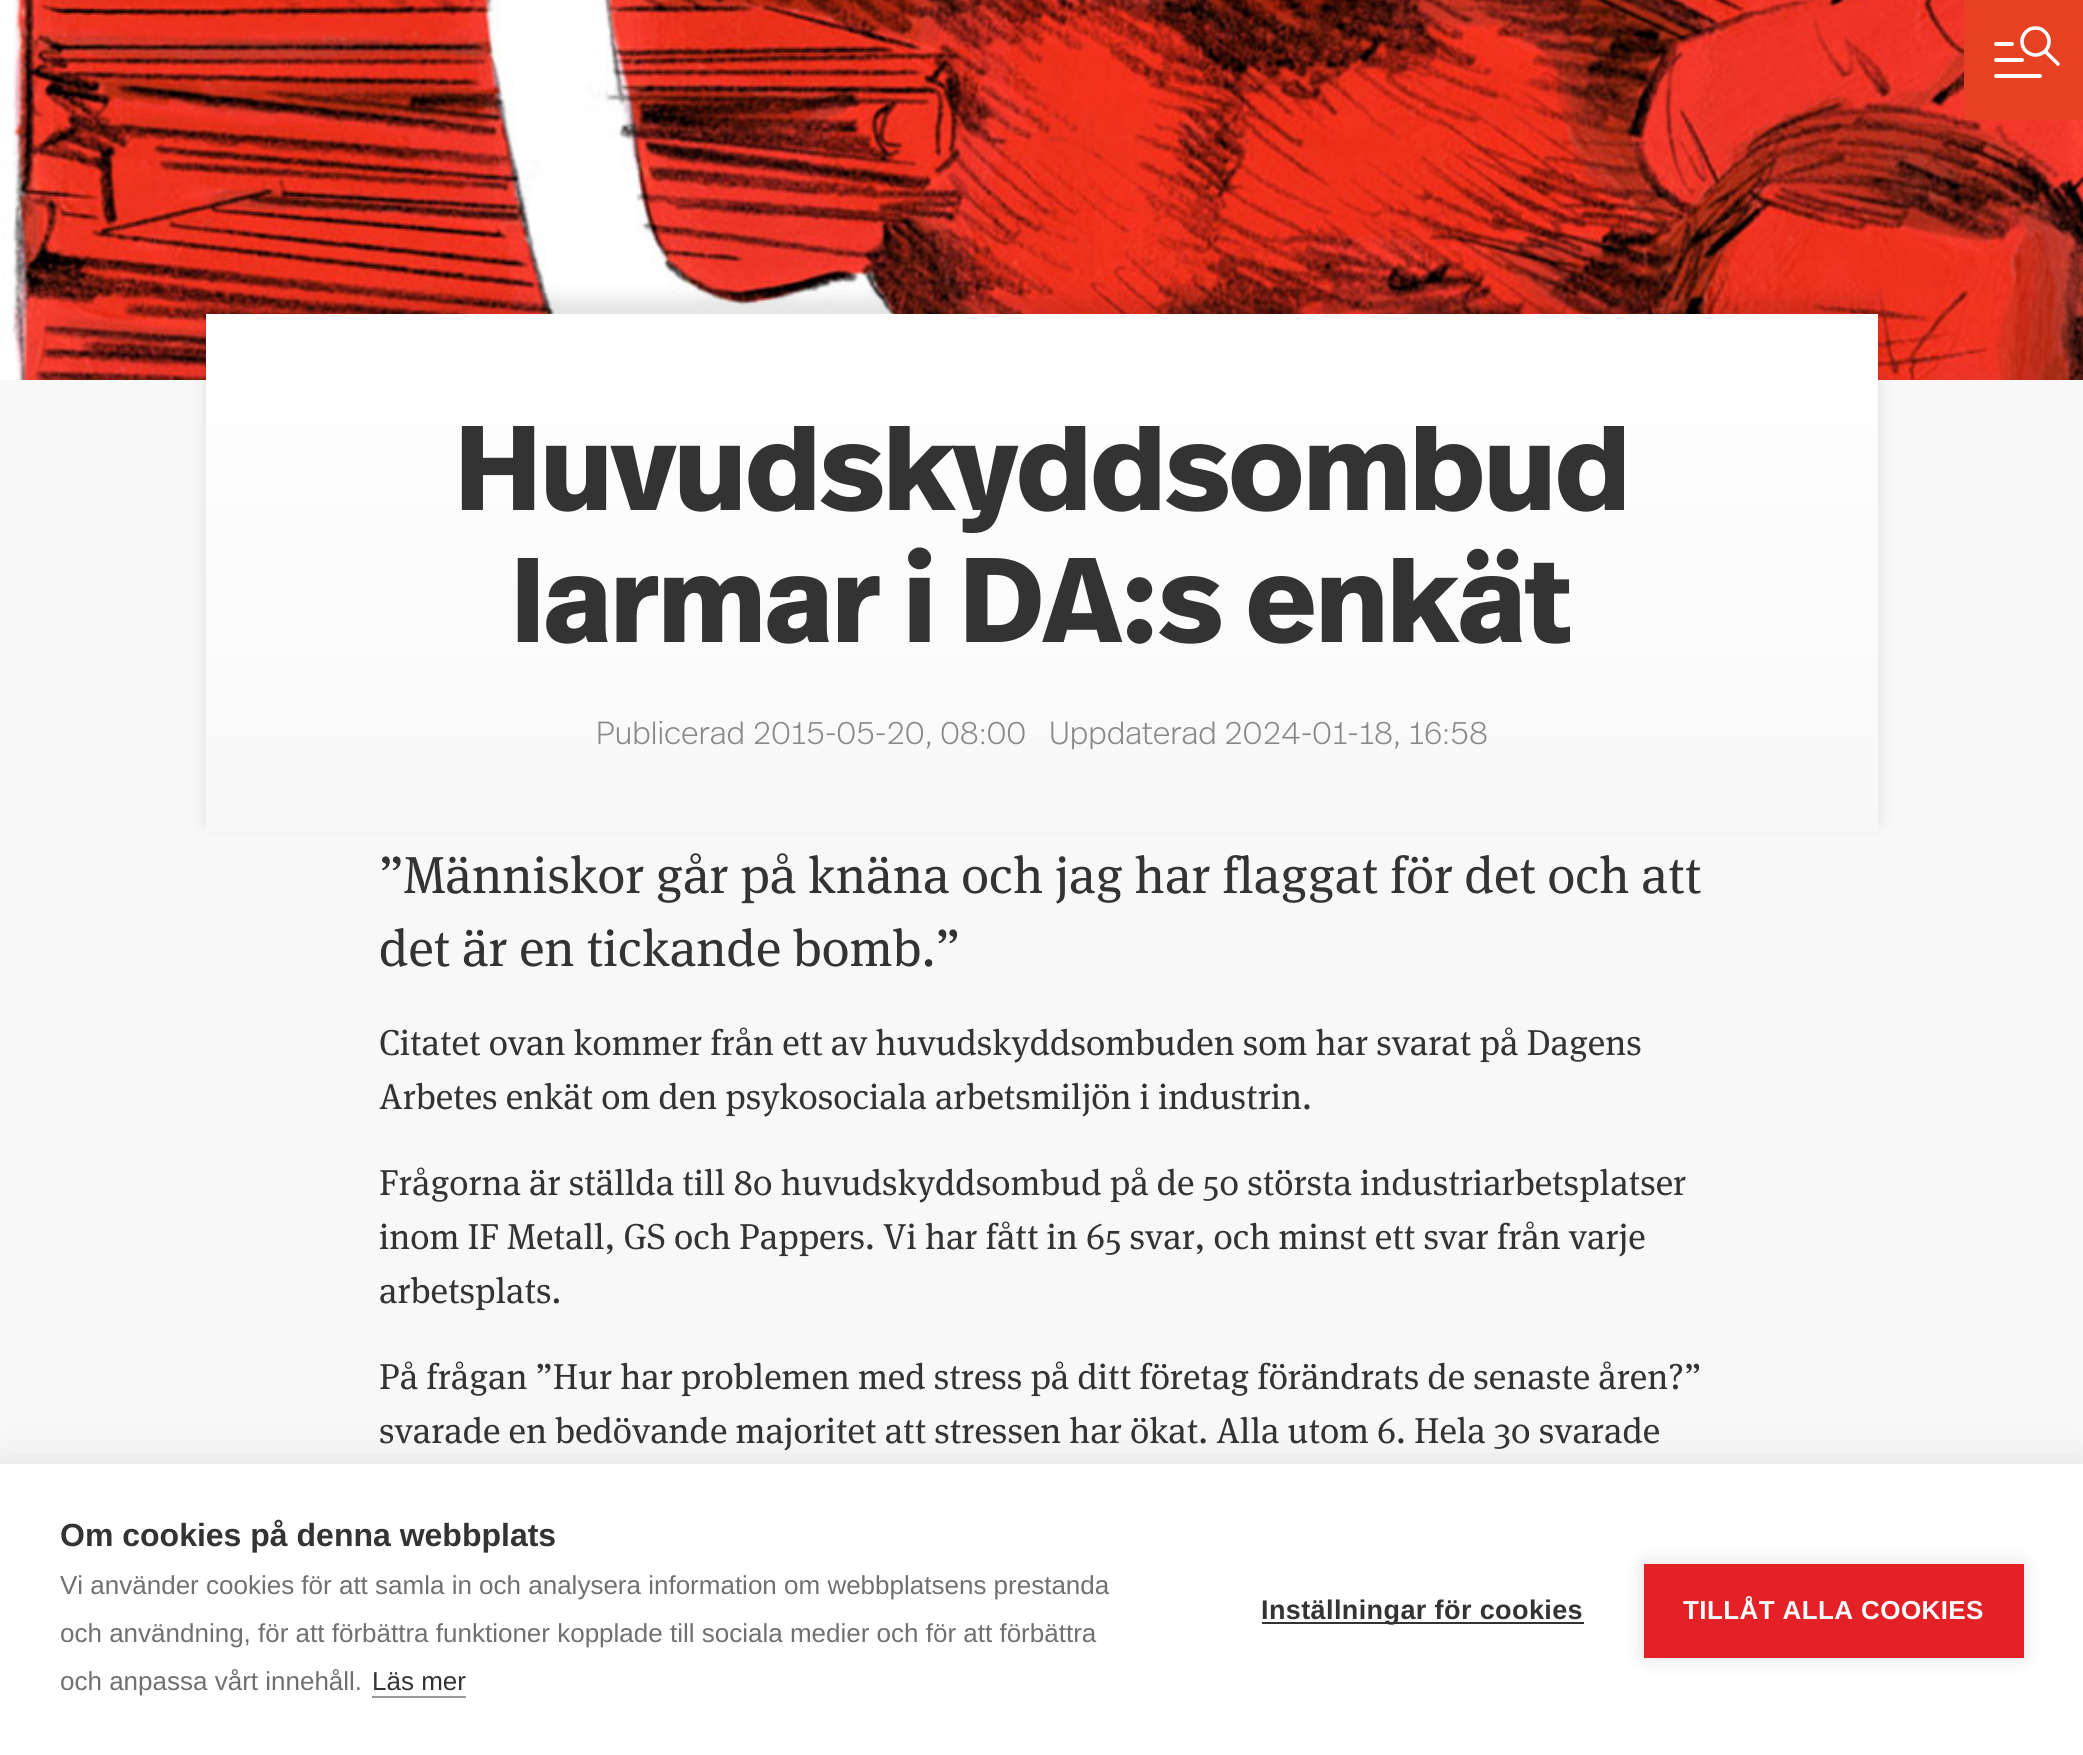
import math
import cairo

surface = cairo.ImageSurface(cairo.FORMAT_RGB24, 2083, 1755)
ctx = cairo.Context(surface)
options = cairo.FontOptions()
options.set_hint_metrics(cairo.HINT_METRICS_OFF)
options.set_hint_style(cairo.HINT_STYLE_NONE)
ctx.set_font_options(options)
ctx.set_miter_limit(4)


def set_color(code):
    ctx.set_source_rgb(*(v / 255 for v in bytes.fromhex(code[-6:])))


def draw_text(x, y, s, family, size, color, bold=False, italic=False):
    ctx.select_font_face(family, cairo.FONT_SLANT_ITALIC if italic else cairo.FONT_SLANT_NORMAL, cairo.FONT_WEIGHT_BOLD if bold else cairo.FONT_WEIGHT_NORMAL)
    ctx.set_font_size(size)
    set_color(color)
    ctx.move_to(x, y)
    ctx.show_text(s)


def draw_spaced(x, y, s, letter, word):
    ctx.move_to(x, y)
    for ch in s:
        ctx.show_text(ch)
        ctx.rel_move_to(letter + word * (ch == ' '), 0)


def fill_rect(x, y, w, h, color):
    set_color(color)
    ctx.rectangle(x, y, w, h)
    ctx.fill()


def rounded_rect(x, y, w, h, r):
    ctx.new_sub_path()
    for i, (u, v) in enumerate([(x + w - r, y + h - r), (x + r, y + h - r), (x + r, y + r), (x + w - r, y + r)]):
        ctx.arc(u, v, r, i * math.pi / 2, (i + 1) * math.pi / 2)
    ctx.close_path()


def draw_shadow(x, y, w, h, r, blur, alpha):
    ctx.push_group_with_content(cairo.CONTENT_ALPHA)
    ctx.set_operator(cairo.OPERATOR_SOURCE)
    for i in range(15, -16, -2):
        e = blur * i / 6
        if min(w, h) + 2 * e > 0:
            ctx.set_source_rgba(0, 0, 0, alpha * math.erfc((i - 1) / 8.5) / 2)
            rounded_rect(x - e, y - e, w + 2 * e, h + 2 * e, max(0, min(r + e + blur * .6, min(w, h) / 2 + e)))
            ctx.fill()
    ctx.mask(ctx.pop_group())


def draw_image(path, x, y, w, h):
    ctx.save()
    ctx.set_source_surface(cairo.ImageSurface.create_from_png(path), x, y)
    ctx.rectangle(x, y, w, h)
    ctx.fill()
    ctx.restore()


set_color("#f8f8f8")
ctx.paint()
draw_image("assets/img2.png", 0, 0, 2083, 380)
fill_rect(1964, 0, 119, 120, "#e74124")
draw_image("assets/img1.png", 1994, 26, 66, 52)
set_color("#000000")
draw_shadow(206, 298, 1672, 524, 0, 8, 0.1)
gradient = cairo.LinearGradient(1042, 314, 1042, 838)
gradient.add_color_stop_rgba(0, 1, 1, 1, 1)
gradient.add_color_stop_rgba(1, 0.973, 0.973, 0.973, 1)
ctx.set_source(gradient)
ctx.rectangle(206, 314, 1672, 518)
ctx.fill()
draw_text(455, 510, "Huvudskyddsombud", "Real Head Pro", 120, "#333333", bold=True)
draw_text(512, 642, "larmar i DA:s enkät", "Real Head Pro", 120, "#333333", bold=True)
draw_text(596, 744, "Publicerad 2015-05-20, 08:00", "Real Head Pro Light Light", 32, "#888888")
draw_text(1049, 744, "Uppdaterad 2024-01-18, 16:58", "Real Head Pro Light Light", 32, "#888888")
draw_text(379, 893, "”Människor går på knäna och jag har flaggat för det och att", "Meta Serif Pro", 52, "#333333")
draw_text(379, 966, "det är en tickande bomb.”", "Meta Serif Pro", 52, "#333333")
draw_text(379, 1055, "Citatet ovan kommer från ett av huvudskyddsombuden som har svarat på Dagens", "Meta Serif Pro", 36, "#333333")
draw_text(379, 1109, "Arbetes enkät om den psykosociala arbetsmiljön i industrin.", "Meta Serif Pro", 36, "#333333")
draw_text(379, 1195, "Frågorna är ställda till 80 huvudskyddsombud på de 50 största industriarbetsplatser", "Meta Serif Pro", 36, "#333333")
draw_text(379, 1249, "inom IF Metall, GS och Pappers. Vi har fått in 65 svar, och minst ett svar från varje", "Meta Serif Pro", 36, "#333333")
draw_text(379, 1303, "arbetsplats.", "Meta Serif Pro", 36, "#333333")
draw_text(379, 1389, "På frågan ”Hur har problemen med stress på ditt företag förändrats de senaste åren?”", "Meta Serif Pro", 36, "#333333")
draw_text(379, 1443, "svarade en bedövande majoritet att stressen har ökat. Alla utom 6. Hela 30 svarade", "Meta Serif Pro", 36, "#333333")
set_color("#000000")
draw_shadow(0, 1464, 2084, 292, 0, 20, 0.1)
fill_rect(0, 1464, 2083, 291, "#ffffff")
draw_text(60, 1546, "Om cookies på denna webbplats", "Liberation Sans", 32, "#333333", bold=True)
draw_text(60, 1594, "Vi använder cookies för att samla in och analysera information om webbplatsens prestanda", "Liberation Sans", 26, "#707070")
draw_text(60, 1642, "och användning, för att förbättra funktioner kopplade till sociala medier och för att förbättra", "Liberation Sans", 26, "#707070")
draw_text(60, 1690, "och anpassa vårt innehåll.", "Liberation Sans", 26, "#707070")
draw_text(372, 1690, "Läs mer", "Liberation Sans", 26, "#333333")
fill_rect(372, 1696, 94, 2, "#999999")
fill_rect(1262, 1622, 322, 2, "#333333")
ctx.select_font_face("Liberation Sans", cairo.FONT_SLANT_NORMAL, cairo.FONT_WEIGHT_BOLD)
ctx.set_font_size(27)
draw_spaced(1261, 1619, "Inställningar för cookies", 0.4, 0)
set_color("#000000")
draw_shadow(1644, 1564, 380, 94, 0, 10, 0.12)
fill_rect(1644, 1564, 380, 94, "#e42127")
ctx.set_font_size(26)
set_color("#ffffff")
draw_spaced(1683, 1619, "TILLÅT ALLA COOKIES", 0.4, 0)
surface.write_to_png("output.png")
